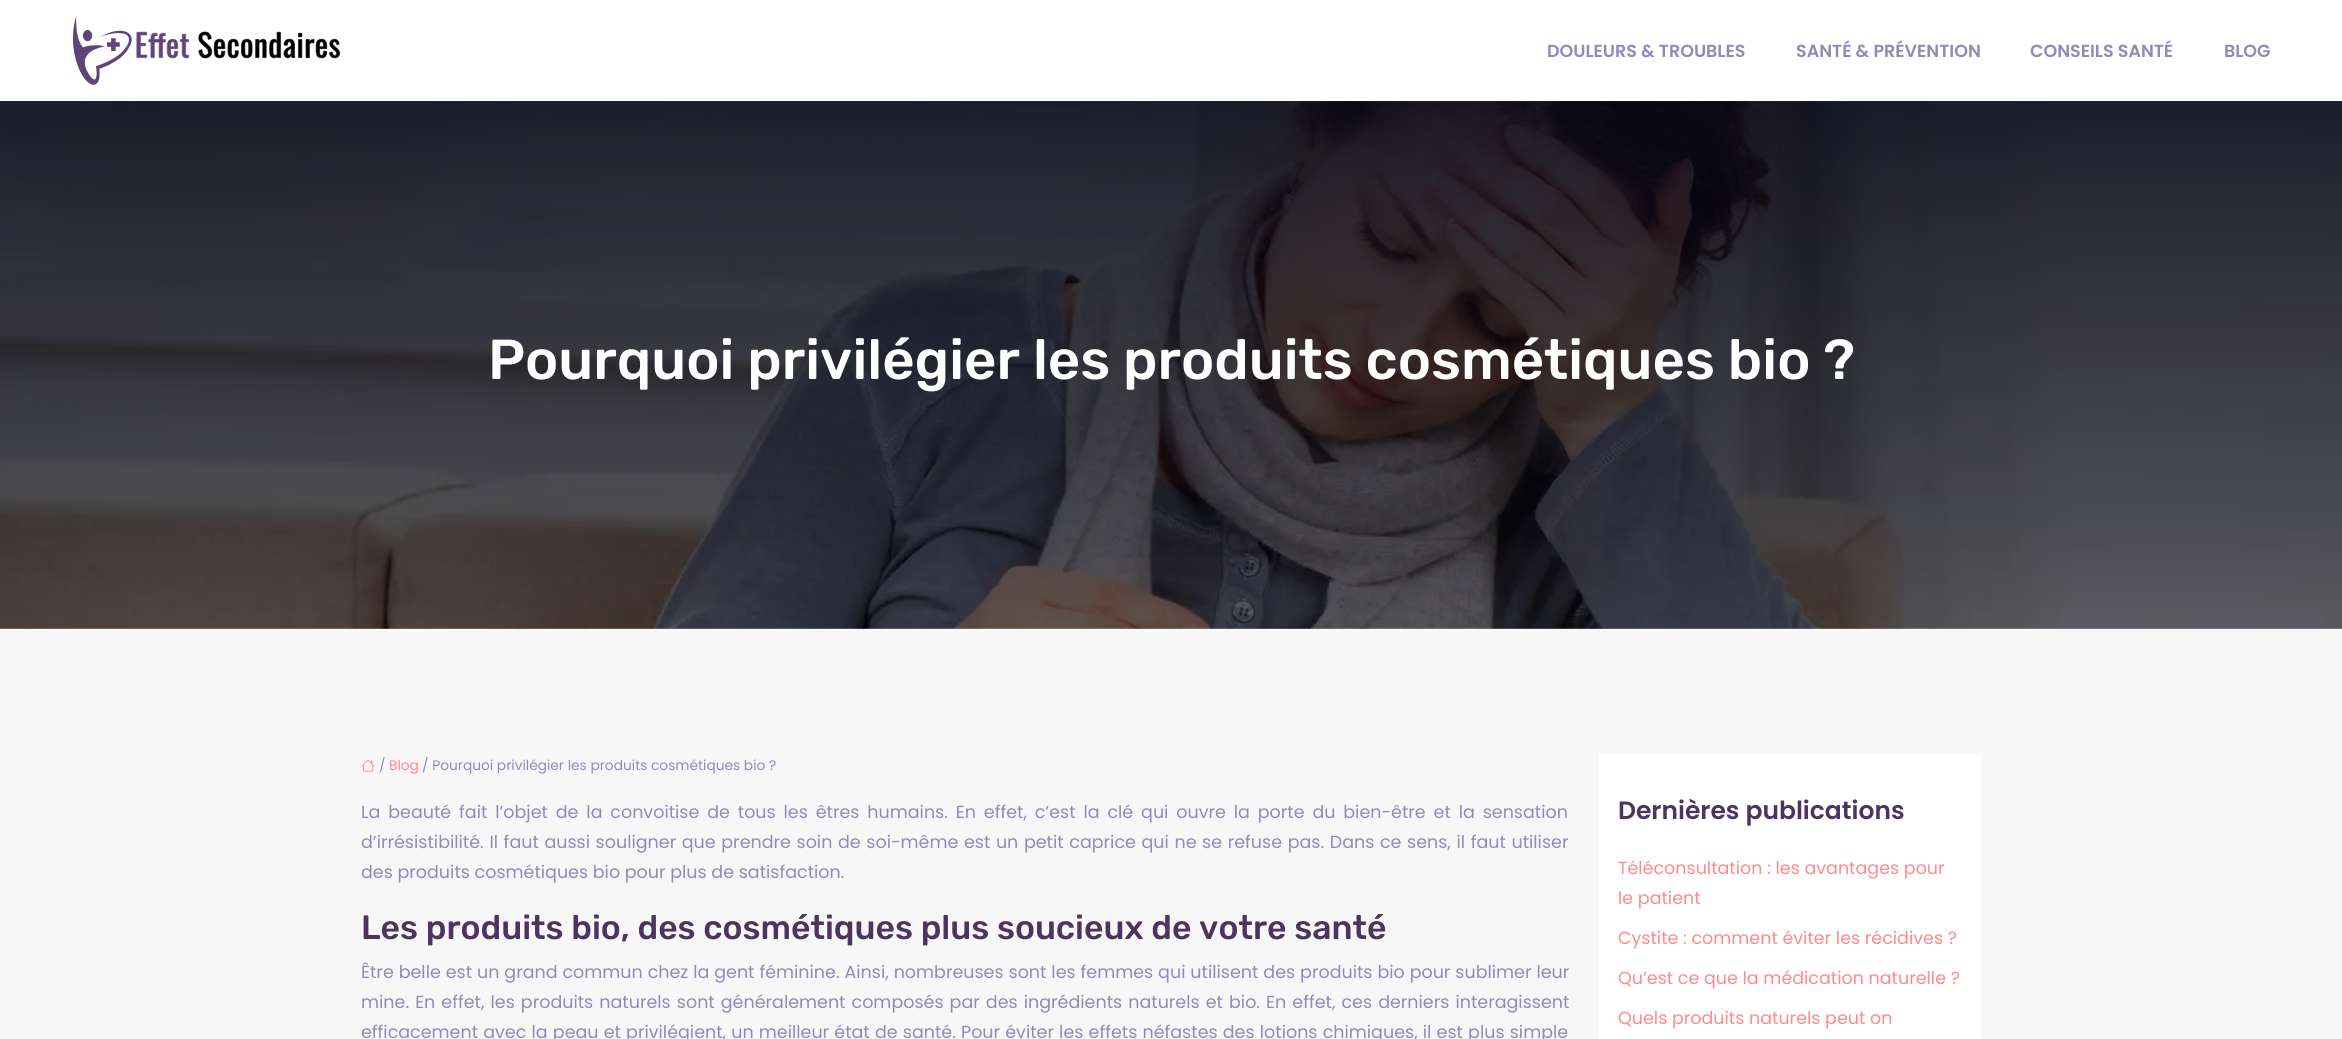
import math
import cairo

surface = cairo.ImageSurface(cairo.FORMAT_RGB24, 2342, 1039)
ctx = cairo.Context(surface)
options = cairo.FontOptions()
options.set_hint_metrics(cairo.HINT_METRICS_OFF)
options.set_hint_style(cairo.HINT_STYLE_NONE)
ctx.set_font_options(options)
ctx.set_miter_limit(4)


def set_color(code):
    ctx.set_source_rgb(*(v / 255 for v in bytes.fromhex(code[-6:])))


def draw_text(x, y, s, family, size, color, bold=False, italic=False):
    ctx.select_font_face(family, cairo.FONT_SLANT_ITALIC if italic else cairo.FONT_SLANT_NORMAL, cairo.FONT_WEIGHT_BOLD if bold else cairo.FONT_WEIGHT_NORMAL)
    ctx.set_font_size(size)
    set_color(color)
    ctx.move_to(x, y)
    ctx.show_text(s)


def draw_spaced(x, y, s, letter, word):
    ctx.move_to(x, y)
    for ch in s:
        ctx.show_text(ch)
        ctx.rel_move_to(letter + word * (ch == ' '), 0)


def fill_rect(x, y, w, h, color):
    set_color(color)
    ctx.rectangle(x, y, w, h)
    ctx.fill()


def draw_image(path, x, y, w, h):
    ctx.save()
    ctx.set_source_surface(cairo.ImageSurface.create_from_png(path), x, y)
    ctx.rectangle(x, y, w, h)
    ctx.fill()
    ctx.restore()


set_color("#f7f7f7")
ctx.paint()
fill_rect(0, 0, 2342, 101, "#ffffff")
draw_image("assets/img1.png", 72, 17, 268, 68)
draw_text(1547, 57, "DOULEURS & TROUBLES", "Poppins SemiBold", 17.5, "#8f8bb8")
draw_text(1796, 57, "SANTÉ & PRÉVENTION", "Poppins SemiBold", 17.5, "#8f8bb8")
draw_text(2030, 57, "CONSEILS SANTÉ", "Poppins SemiBold", 17.5, "#8f8bb8")
draw_text(2224, 57, "BLOG", "Poppins SemiBold", 17.5, "#8f8bb8")
draw_image("assets/img2.png", 0, 101, 2342, 528)
gradient = cairo.LinearGradient(1171, 101, 1171, 629)
gradient.add_color_stop_rgba(0, 0.027, 0.031, 0.094, 0.8)
gradient.add_color_stop_rgba(1, 0.027, 0.031, 0.094, 0.2)
ctx.set_source(gradient)
ctx.rectangle(0, 101, 2342, 528)
ctx.fill()
draw_text(488, 379, "Pourquoi privilégier les produits cosmétiques bio ?", "Rubik Light", 56.25, "#ffffff")
draw_image("assets/img3.png", 361, 759, 14, 13)
draw_text(379, 770, "/", "Poppins", 13.75, "#8f8bb8")
draw_text(389, 770, "Blog", "Poppins", 13.75, "#ff8a8b")
draw_text(422, 770, "/ Pourquoi privilégier les produits cosmétiques bio ?", "Poppins", 13.75, "#8f8bb8")
ctx.set_font_size(17.5)
draw_spaced(361, 818, "La beauté fait l’objet de la convoitise de tous les êtres humains. En effet, c’est la clé qui ouvre la porte du bien-être et la sensation", 0, 3.2)
draw_spaced(361, 848, "d’irrésistibilité. Il faut aussi souligner que prendre soin de soi-même est un petit caprice qui ne se refuse pas. Dans ce sens, il faut utiliser", 0, 0.95)
draw_text(361, 878, "des produits cosmétiques bio pour plus de satisfaction.", "Poppins", 17.5, "#8f8bb8")
draw_text(361, 939, "Les produits bio, des cosmétiques plus soucieux de votre santé", "Rubik Light", 33.75, "#4d3460")
ctx.select_font_face("Poppins")
ctx.set_font_size(17.5)
set_color("#8f8bb8")
draw_spaced(361, 978, "Être belle est un grand commun chez la gent féminine. Ainsi, nombreuses sont les femmes qui utilisent des produits bio pour sublimer leur", 0, 0.25)
draw_spaced(361, 1008, "mine. En effet, les produits naturels sont généralement composés par des ingrédients naturels et bio. En effet, ces derniers interagissent", 0, 1.4)
draw_spaced(361, 1038, "efficacement avec la peau et privilégient, un meilleur état de santé. Pour éviter les effets néfastes des lotions chimiques, il est plus simple", 0, 0.5)
fill_rect(1599, 754, 382, 285, "#ffffff")
draw_text(1618, 819, "Dernières publications", "Poppins SemiBold", 25, "#4d3460")
draw_text(1618, 874, "Téléconsultation : les avantages pour", "Poppins", 17.5, "#ff8a8b")
draw_text(1618, 904, "le patient", "Poppins", 17.5, "#ff8a8b")
draw_text(1618, 944, "Cystite : comment éviter les récidives ?", "Poppins", 17.5, "#ff8a8b")
draw_text(1618, 984, "Qu’est ce que la médication naturelle ?", "Poppins", 17.5, "#ff8a8b")
draw_text(1618, 1024, "Quels produits naturels peut on", "Poppins", 17.5, "#ff8a8b")
surface.write_to_png("output.png")
